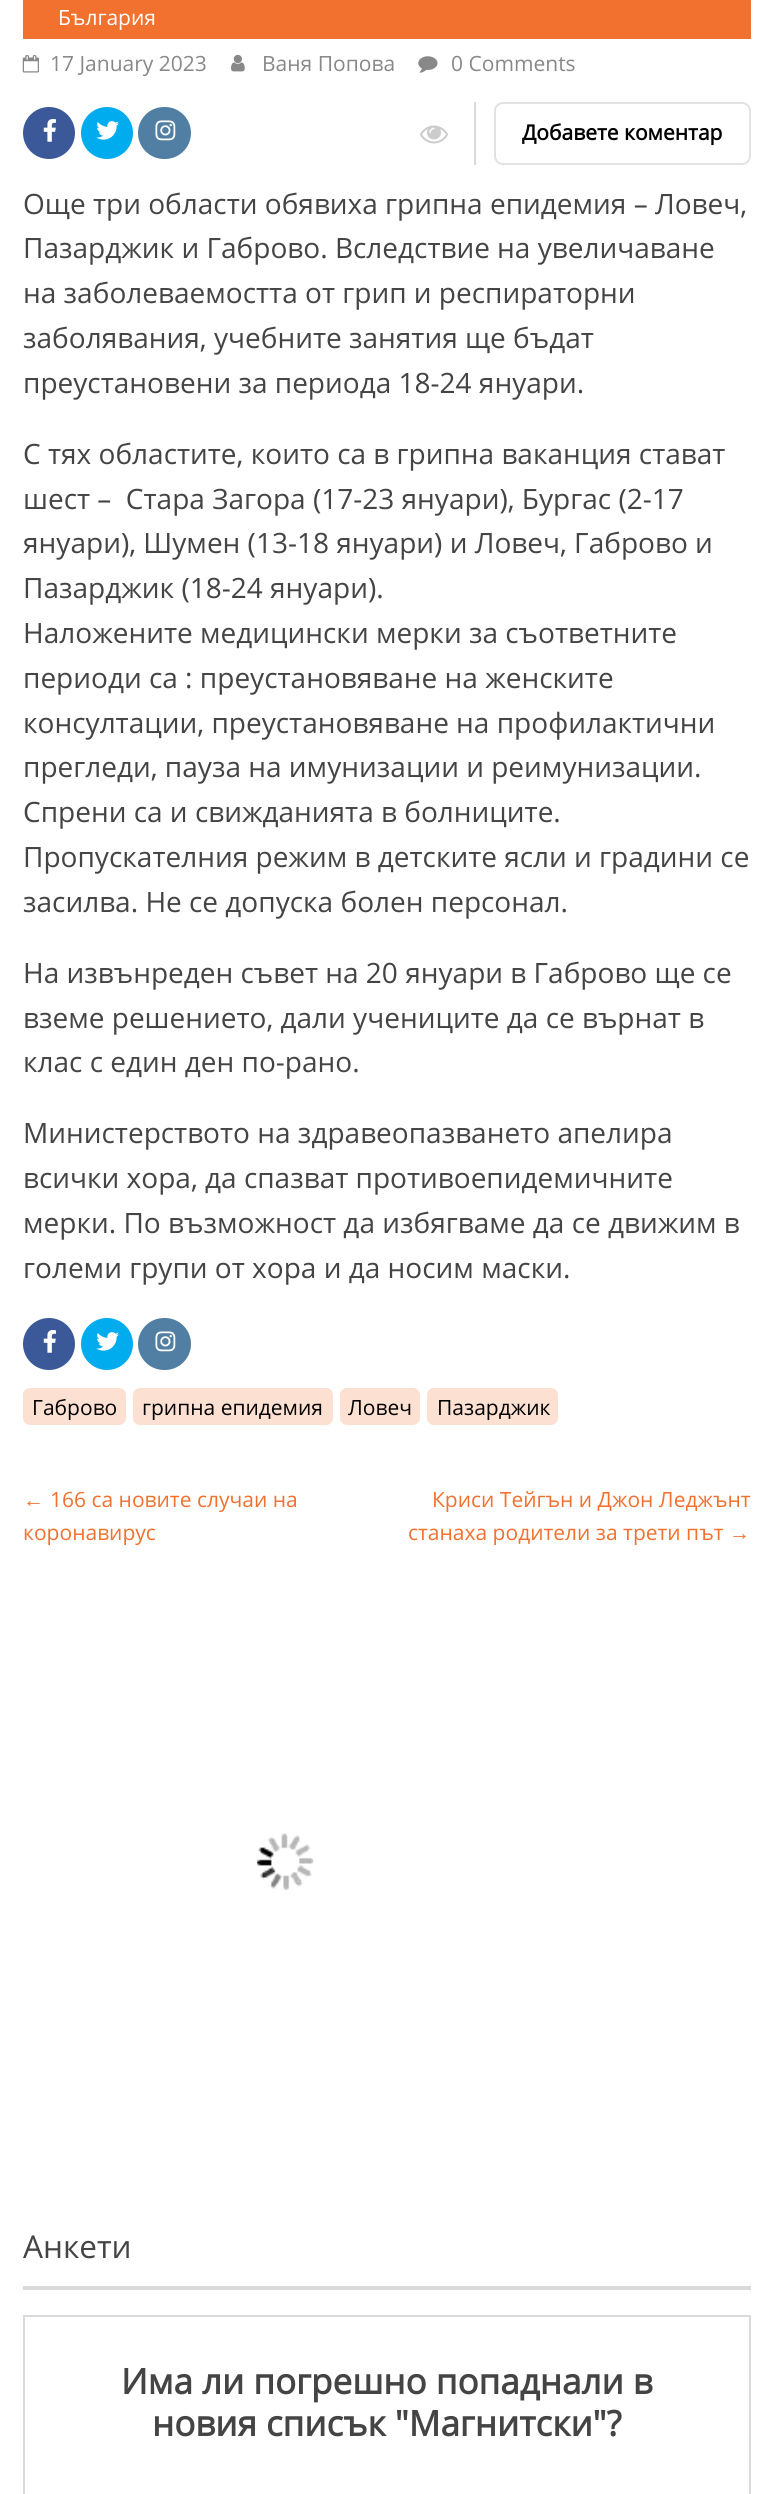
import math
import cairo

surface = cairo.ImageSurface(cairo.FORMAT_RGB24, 773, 2494)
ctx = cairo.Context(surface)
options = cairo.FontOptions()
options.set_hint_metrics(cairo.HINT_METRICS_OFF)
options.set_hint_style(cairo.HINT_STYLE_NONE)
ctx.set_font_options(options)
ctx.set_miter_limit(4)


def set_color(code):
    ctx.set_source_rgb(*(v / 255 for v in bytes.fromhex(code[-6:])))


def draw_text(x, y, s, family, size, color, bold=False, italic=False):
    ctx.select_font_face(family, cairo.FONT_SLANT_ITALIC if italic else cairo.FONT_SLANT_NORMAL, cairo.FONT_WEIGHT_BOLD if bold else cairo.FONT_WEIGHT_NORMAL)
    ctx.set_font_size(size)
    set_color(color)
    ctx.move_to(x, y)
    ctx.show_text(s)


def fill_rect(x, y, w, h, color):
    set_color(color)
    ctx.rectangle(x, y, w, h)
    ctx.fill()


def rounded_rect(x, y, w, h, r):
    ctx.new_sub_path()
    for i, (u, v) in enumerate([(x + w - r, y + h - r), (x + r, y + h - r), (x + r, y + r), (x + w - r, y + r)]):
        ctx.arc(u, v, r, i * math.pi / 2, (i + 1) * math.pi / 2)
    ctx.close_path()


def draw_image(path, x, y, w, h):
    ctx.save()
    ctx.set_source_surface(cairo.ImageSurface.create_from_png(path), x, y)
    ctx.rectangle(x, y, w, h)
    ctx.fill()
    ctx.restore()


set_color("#ffffff")
ctx.paint()
fill_rect(23, 0, 728, 39, "#f2712f")
draw_text(58, 25, "България", "Open Sans", 21, "#ffffff")
draw_image("assets/img1.png", 22, 55, 17, 18)
draw_text(50, 71, "17 January 2023", "Open Sans", 21, "#888888")
draw_image("assets/img2.png", 231, 54, 14, 18)
draw_text(262, 71, "Ваня Попова", "Open Sans", 21, "#888888")
draw_image("assets/img3.png", 418, 56, 20, 17)
draw_text(451, 71, "0 Comments", "Open Sans", 21, "#888888")
set_color("#3b5998")
ctx.new_path()
ctx.arc(49, 133, 26, 0, 2 * math.pi)
ctx.fill()
draw_image("assets/img4.png", 43, 119, 13, 23)
set_color("#00aced")
ctx.arc(107, 133, 26, 0, 2 * math.pi)
ctx.fill()
draw_image("assets/img5.png", 96, 121, 23, 19)
set_color("#517fa4")
rounded_rect(138, 107, 53, 52, 26)
ctx.fill()
draw_image("assets/img6.png", 155, 120, 21, 21)
fill_rect(474, 102, 2, 63, "#dadada")
draw_image("assets/img7.png", 420, 125, 28, 19)
rounded_rect(495, 103, 255, 61, 8)
set_color("#e2e2e2")
ctx.stroke()
draw_text(522, 140, "Добавете коментар", "Open Sans", 21, "#000000", bold=True)
draw_text(23, 214, "Още три области обявиха грипна епидемия – Ловеч,", "Open Sans", 28, "#444444")
draw_text(23, 258, "Пазарджик и Габрово. Вследствие на увеличаване", "Open Sans", 28, "#444444")
draw_text(23, 303, "на заболеваемостта от грип и респираторни", "Open Sans", 28, "#444444")
draw_text(23, 348, "заболявания, учебните занятия ще бъдат", "Open Sans", 28, "#444444")
draw_text(23, 393, "преустановени за периода 18-24 януари.", "Open Sans", 28, "#444444")
draw_text(23, 464, "С тях областите, които са в грипна ваканция стават", "Open Sans", 28, "#444444")
draw_text(23, 509, "шест –  Стара Загора (17-23 януари), Бургас (2-17", "Open Sans", 28, "#444444")
draw_text(23, 553, "януари), Шумен (13-18 януари) и Ловеч, Габрово и", "Open Sans", 28, "#444444")
draw_text(23, 598, "Пазарджик (18-24 януари).", "Open Sans", 28, "#444444")
draw_text(23, 643, "Наложените медицински мерки за съответните", "Open Sans", 28, "#444444")
draw_text(23, 688, "периоди са : преустановяване на женските", "Open Sans", 28, "#444444")
draw_text(23, 733, "консултации, преустановяване на профилактични", "Open Sans", 28, "#444444")
draw_text(23, 777, "прегледи, пауза на имунизации и реимунизации.", "Open Sans", 28, "#444444")
draw_text(23, 822, "Спрени са и свижданията в болниците.", "Open Sans", 28, "#444444")
draw_text(23, 867, "Пропускателния режим в детските ясли и градини се", "Open Sans", 28, "#444444")
draw_text(23, 912, "засилва. Не се допуска болен персонал.", "Open Sans", 28, "#444444")
draw_text(23, 983, "На извънреден съвет на 20 януари в Габрово ще се", "Open Sans", 28, "#444444")
draw_text(23, 1028, "вземе решението, дали учениците да се върнат в", "Open Sans", 28, "#444444")
draw_text(23, 1072, "клас с един ден по-рано.", "Open Sans", 28, "#444444")
draw_text(23, 1143, "Министерството на здравеопазването апелира", "Open Sans", 28, "#444444")
draw_text(23, 1188, "всички хора, да спазват противоепидемичните", "Open Sans", 28, "#444444")
draw_text(23, 1233, "мерки. По възможност да избягваме да се движим в", "Open Sans", 28, "#444444")
draw_text(23, 1278, "големи групи от хора и да носим маски.", "Open Sans", 28, "#444444")
set_color("#3b5998")
ctx.new_path()
ctx.arc(49, 1344, 26, 0, 2 * math.pi)
ctx.fill()
draw_image("assets/img4.png", 43, 1330, 13, 23)
set_color("#00aced")
ctx.arc(107, 1344, 26, 0, 2 * math.pi)
ctx.fill()
draw_image("assets/img5.png", 96, 1332, 23, 19)
set_color("#517fa4")
rounded_rect(138, 1318, 53, 52, 26)
ctx.fill()
draw_image("assets/img6.png", 155, 1331, 21, 21)
set_color("#fce0d1")
rounded_rect(23, 1388, 103, 37, 7)
ctx.fill()
draw_text(32, 1415, "Габрово", "Open Sans", 21, "#000000")
set_color("#fce0d1")
rounded_rect(133, 1388, 200, 37, 7)
ctx.fill()
draw_text(142, 1415, "грипна епидемия", "Open Sans", 21, "#000000")
set_color("#fce0d1")
rounded_rect(340, 1388, 80, 37, 7)
ctx.fill()
draw_text(348, 1415, "Ловеч", "Open Sans", 21, "#000000")
set_color("#fce0d1")
rounded_rect(427, 1388, 131, 37, 7)
ctx.fill()
draw_text(437, 1415, "Пазарджик", "Open Sans", 21, "#000000")
draw_text(23, 1507, "←", "Liberation Serif", 21, "#f2712f")
draw_text(50, 1507, "166 са новите случаи на", "Open Sans", 21, "#f2712f")
draw_text(23, 1540, "коронавирус", "Open Sans", 21, "#f2712f")
draw_text(432, 1507, "Криси Тейгън и Джон Леджънт", "Open Sans", 21, "#f2712f")
draw_text(408, 1540, "станаха родители за трети път", "Open Sans", 21, "#f2712f")
draw_text(729, 1540, "→", "Liberation Serif", 21, "#f2712f")
draw_image("assets/img8.png", 257, 1833, 57, 57)
fill_rect(23, 2286, 728, 4, "#dadada")
draw_text(23, 2258, "Анкети", "Open Sans", 31.5, "#444444")
ctx.rectangle(24, 2316, 726, 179)
set_color("#dadada")
ctx.stroke()
draw_text(121, 2394, "Има ли погрешно попаднали в", "Open Sans", 35, "#444444", bold=True)
draw_text(152, 2436, "новия списък \"Магнитски\"?", "Open Sans", 35, "#444444", bold=True)
surface.write_to_png("output.png")
